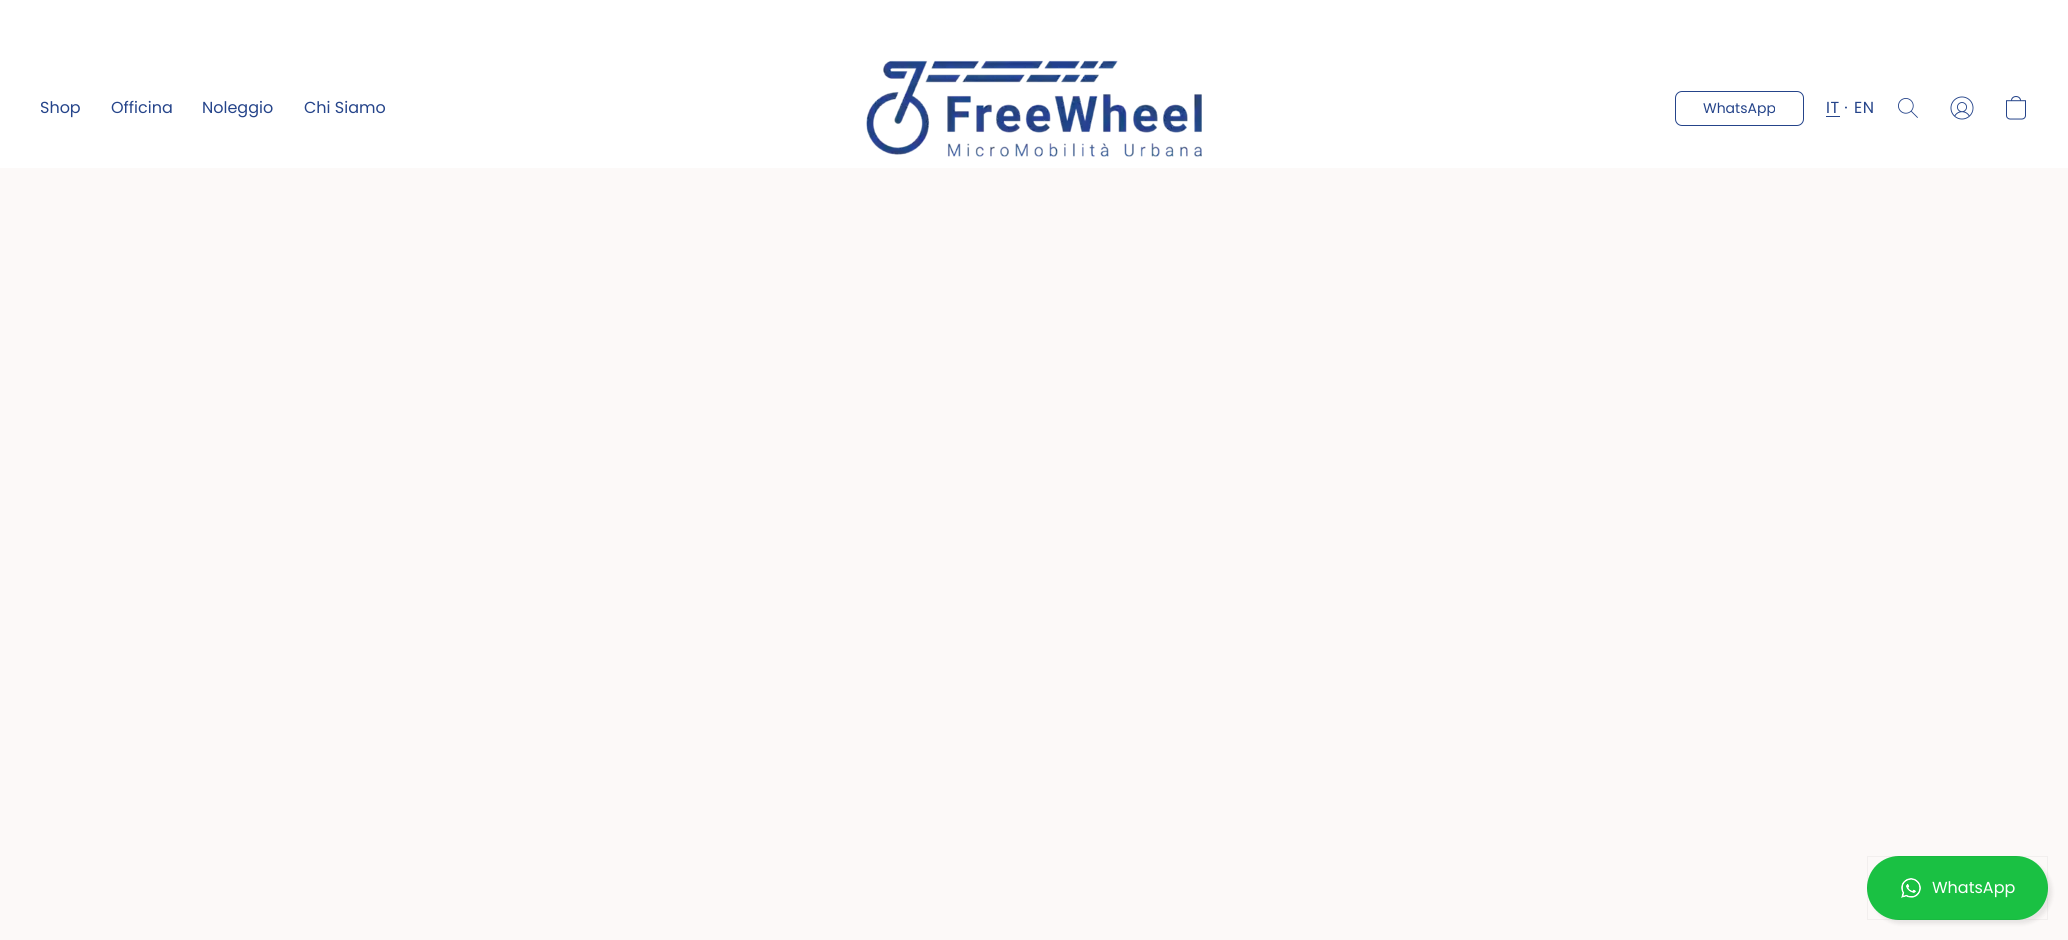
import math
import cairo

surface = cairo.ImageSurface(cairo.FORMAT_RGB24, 2068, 940)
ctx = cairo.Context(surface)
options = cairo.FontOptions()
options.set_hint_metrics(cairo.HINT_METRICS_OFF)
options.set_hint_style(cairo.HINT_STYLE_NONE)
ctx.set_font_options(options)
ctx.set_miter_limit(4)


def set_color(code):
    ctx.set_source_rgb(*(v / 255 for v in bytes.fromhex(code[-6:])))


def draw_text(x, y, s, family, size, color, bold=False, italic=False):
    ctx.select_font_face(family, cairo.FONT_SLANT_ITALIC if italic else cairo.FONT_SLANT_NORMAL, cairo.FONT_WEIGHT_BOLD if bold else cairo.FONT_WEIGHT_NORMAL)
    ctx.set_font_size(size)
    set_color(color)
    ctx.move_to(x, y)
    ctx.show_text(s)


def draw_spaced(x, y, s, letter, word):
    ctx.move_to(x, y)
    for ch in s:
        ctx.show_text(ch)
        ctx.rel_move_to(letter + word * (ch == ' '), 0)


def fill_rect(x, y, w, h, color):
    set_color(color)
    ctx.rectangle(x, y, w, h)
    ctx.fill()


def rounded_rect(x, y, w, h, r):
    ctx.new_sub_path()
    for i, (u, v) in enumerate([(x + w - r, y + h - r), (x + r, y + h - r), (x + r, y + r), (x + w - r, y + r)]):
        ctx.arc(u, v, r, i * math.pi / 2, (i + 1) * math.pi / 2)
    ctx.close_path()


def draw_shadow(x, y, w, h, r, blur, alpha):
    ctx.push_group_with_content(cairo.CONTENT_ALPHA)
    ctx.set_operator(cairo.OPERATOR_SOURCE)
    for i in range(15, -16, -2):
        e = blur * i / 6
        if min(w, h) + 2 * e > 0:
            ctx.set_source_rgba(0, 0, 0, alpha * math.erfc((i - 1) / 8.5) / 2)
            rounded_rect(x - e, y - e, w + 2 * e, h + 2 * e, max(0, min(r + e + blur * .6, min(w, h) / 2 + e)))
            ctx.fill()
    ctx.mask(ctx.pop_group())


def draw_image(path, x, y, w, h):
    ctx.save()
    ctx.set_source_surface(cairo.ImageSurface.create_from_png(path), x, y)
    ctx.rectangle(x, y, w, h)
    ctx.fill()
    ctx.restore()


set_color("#fcf9f8")
ctx.paint()
fill_rect(0, 0, 2068, 168, "#ffffff")
draw_text(40, 113, "Shop", "Poppins", 16, "#25448a")
draw_text(111, 113, "Officina", "Poppins", 16, "#25448a")
draw_text(202, 113, "Noleggio", "Poppins", 16, "#25448a")
draw_text(304, 113, "Chi Siamo", "Poppins", 16, "#25448a")
draw_image("assets/img1.png", 866, 60, 336, 97)
rounded_rect(1675.5, 91.5, 128, 34, 6.5)
ctx.set_line_width(1)
ctx.stroke()
ctx.save()
ctx.rectangle(1675, 100, 129, 16)
ctx.clip()
draw_text(1703, 113, "WhatsApp", "Poppins", 14, "#25448a")
ctx.restore()
draw_spaced(1826, 113, "IT ·", 0.5, 0)
fill_rect(1826, 116, 14, 1, "#25448a")
draw_spaced(1854, 113, "EN", 0.5, 0)
draw_image("assets/img2.png", 1898, 98, 20, 20)
draw_image("assets/img3.png", 1950, 96, 24, 24)
draw_image("assets/img4.png", 2006, 96, 20, 24)
set_color("#000000")
draw_shadow(1871, 860, 181, 64, 32, 2, 0.08)
set_color("#1ac143")
rounded_rect(1867, 856, 181, 64, 32)
ctx.fill()
ctx.rectangle(1867.5, 856.5, 180, 63)
ctx.set_source_rgba(0.086, 0.086, 0.086, 0.04)
ctx.stroke()
draw_image("assets/img5.png", 1901, 878, 20, 20)
draw_text(1932, 893, "WhatsApp", "Poppins", 16, "#ffffff")
surface.write_to_png("output.png")
